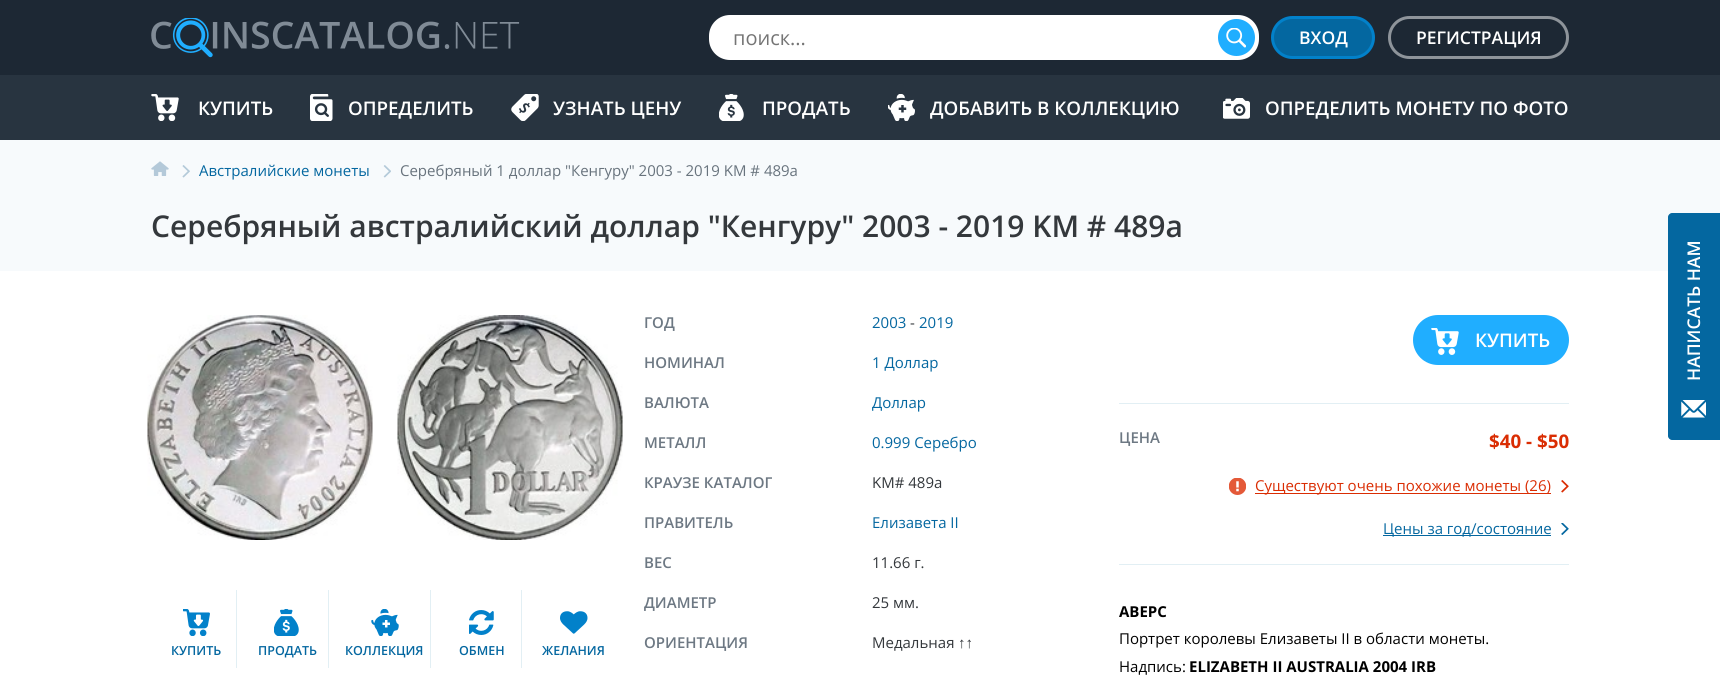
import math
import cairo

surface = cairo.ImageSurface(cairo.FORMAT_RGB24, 1720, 681)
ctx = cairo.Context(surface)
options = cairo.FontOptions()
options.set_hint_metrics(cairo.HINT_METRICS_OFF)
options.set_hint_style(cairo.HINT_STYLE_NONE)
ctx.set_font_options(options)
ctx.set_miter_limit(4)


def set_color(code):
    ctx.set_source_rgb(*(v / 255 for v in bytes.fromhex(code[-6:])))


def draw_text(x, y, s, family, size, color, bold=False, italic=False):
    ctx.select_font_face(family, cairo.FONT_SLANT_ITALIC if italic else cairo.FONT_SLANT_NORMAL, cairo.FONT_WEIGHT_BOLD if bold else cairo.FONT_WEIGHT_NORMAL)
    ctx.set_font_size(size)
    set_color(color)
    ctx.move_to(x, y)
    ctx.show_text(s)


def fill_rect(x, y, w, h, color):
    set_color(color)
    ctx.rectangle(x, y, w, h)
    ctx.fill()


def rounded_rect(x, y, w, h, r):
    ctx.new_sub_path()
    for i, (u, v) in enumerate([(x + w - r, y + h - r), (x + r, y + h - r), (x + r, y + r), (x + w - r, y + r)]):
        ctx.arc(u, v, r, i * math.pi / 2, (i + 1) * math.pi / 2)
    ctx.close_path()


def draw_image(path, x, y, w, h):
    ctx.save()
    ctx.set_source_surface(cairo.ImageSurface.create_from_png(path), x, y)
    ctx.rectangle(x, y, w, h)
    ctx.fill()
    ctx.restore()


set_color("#ffffff")
ctx.paint()
fill_rect(0, 0, 1720, 75, "#1d2834")
draw_image("assets/img1.png", 151, 18, 369, 40)
set_color("#ffffff")
rounded_rect(709, 15, 550, 45, 21)
ctx.fill()
draw_text(733, 45, "поиск...", "Open Sans", 20, "#757575")
set_color("#20aeff")
ctx.new_path()
ctx.arc(1236.5, 37.5, 18.5, 0, 2 * math.pi)
ctx.fill()
draw_image("assets/img2.png", 1226, 28, 20, 20)
set_color("#0467a0")
rounded_rect(1272.5, 17.5, 101, 40, 20)
ctx.fill_preserve()
set_color("#0281ca")
ctx.set_line_width(3)
ctx.stroke()
draw_text(1299, 44, "ВХОД", "Open Sans SemiBold", 17.5, "#ffffff")
rounded_rect(1389.5, 17.5, 178, 40, 20)
set_color("#8e949a")
ctx.stroke()
draw_text(1416, 44, "РЕГИСТРАЦИЯ", "Open Sans SemiBold", 17.5, "#ffffff")
fill_rect(0, 75, 1720, 65, "#283440")
draw_image("assets/img3.png", 151, 94, 28, 27)
draw_text(198, 115, "КУПИТЬ", "Open Sans SemiBold", 18.75, "#ffffff")
draw_image("assets/img4.png", 310, 94, 23, 27)
draw_text(348, 115, "ОПРЕДЕЛИТЬ", "Open Sans SemiBold", 18.75, "#ffffff")
draw_image("assets/img5.png", 511, 94, 28, 27)
draw_text(553, 115, "УЗНАТЬ ЦЕНУ", "Open Sans SemiBold", 18.75, "#ffffff")
draw_image("assets/img6.png", 719, 94, 25, 27)
draw_text(762, 115, "ПРОДАТЬ", "Open Sans SemiBold", 18.75, "#ffffff")
draw_image("assets/img7.png", 888, 94, 27, 27)
draw_text(930, 115, "ДОБАВИТЬ В КОЛЛЕКЦИЮ", "Open Sans SemiBold", 18.75, "#ffffff")
draw_image("assets/img8.png", 1223, 98, 27, 21)
draw_text(1265, 115, "ОПРЕДЕЛИТЬ МОНЕТУ ПО ФОТО", "Open Sans SemiBold", 18.75, "#ffffff")
fill_rect(0, 140, 1720, 131, "#f7fafc")
draw_image("assets/img9.png", 151, 161, 18, 15)
draw_image("assets/img10.png", 182, 165, 8, 13)
draw_text(199, 176, "Австралийские монеты", "Open Sans", 15, "#0467a0")
draw_image("assets/img11.png", 383, 165, 8, 13)
draw_text(400, 176, "Серебряный 1 доллар \"Кенгуру\" 2003 - 2019 KM # 489a", "Open Sans", 15, "#68737d")
draw_text(151, 237, "Серебряный австралийский доллар \"Кенгуру\" 2003 - 2019 KM # 489a", "Open Sans SemiBold", 30, "#34383c")
draw_image("assets/img12.png", 147, 315, 226, 225)
draw_image("assets/img13.png", 397, 315, 226, 225)
fill_rect(236, 590, 1, 78, "#e2eff4")
draw_image("assets/img14.png", 183, 609, 27, 27)
draw_text(171, 655, "КУПИТЬ", "Open Sans SemiBold", 12.5, "#0467a0")
fill_rect(328, 590, 1, 78, "#e2eff4")
draw_image("assets/img15.png", 274, 609, 25, 27)
draw_text(258, 655, "ПРОДАТЬ", "Open Sans SemiBold", 12.5, "#0467a0")
fill_rect(430, 590, 1, 78, "#e2eff4")
draw_image("assets/img16.png", 371, 609, 28, 27)
draw_text(345, 655, "КОЛЛЕКЦИЯ", "Open Sans SemiBold", 12.5, "#0467a0")
fill_rect(521, 590, 1, 78, "#e2eff4")
draw_image("assets/img17.png", 469, 610, 25, 25)
draw_text(459, 655, "ОБМЕН", "Open Sans SemiBold", 12.5, "#0467a0")
draw_image("assets/img18.png", 560, 611, 28, 23)
draw_text(542, 655, "ЖЕЛАНИЯ", "Open Sans SemiBold", 12.5, "#0467a0")
draw_text(644, 328, "ГОД", "Open Sans SemiBold", 15, "#6d7883")
draw_text(872, 328, "2003", "Open Sans", 15, "#0467a0")
draw_text(910, 328, "-", "Open Sans", 15, "#34383c")
draw_text(919, 328, "2019", "Open Sans", 15, "#0467a0")
draw_text(644, 368, "НОМИНАЛ", "Open Sans SemiBold", 15, "#6d7883")
draw_text(872, 368, "1 Доллар", "Open Sans", 15, "#0467a0")
draw_text(644, 408, "ВАЛЮТА", "Open Sans SemiBold", 15, "#6d7883")
draw_text(872, 408, "Доллар", "Open Sans", 15, "#0467a0")
draw_text(644, 448, "МЕТАЛЛ", "Open Sans SemiBold", 15, "#6d7883")
draw_text(872, 448, "0.999 Серебро", "Open Sans", 15, "#0467a0")
draw_text(644, 488, "КРАУЗЕ КАТАЛОГ", "Open Sans SemiBold", 15, "#6d7883")
draw_text(872, 488, "KM# 489a", "Open Sans", 15, "#34383c")
draw_text(644, 528, "ПРАВИТЕЛЬ", "Open Sans SemiBold", 15, "#6d7883")
draw_text(872, 528, "Елизавета II", "Open Sans", 15, "#0467a0")
draw_text(644, 568, "ВЕС", "Open Sans SemiBold", 15, "#6d7883")
draw_text(872, 568, "11.66 г.", "Open Sans", 15, "#34383c")
draw_text(644, 608, "ДИАМЕТР", "Open Sans SemiBold", 15, "#6d7883")
draw_text(872, 608, "25 мм.", "Open Sans", 15, "#34383c")
draw_text(644, 648, "ОРИЕНТАЦИЯ", "Open Sans SemiBold", 15, "#6d7883")
draw_text(872, 648, "Медальная", "Open Sans", 15, "#34383c")
draw_text(958, 648, "↑↑", "Liberation Sans", 15, "#34383c")
set_color("#20aeff")
rounded_rect(1413, 315, 156, 50, 25)
ctx.fill()
draw_image("assets/img19.png", 1431, 328, 28, 27)
draw_text(1475, 347, "КУПИТЬ", "Open Sans SemiBold", 18.75, "#ffffff")
fill_rect(1119, 403, 450, 1, "#e2eff4")
draw_text(1119, 443, "ЦЕНА", "Open Sans SemiBold", 15, "#6d7883")
draw_text(1489, 448, "$40 - $50", "Open Sans", 18.75, "#da2d03", bold=True)
draw_image("assets/img20.png", 1229, 478, 17, 17)
fill_rect(1255, 493, 296, 1, "#da2d03")
draw_text(1255, 491, "Существуют очень похожие монеты (26)", "Open Sans", 15, "#da2d03")
draw_image("assets/img21.png", 1561, 480, 8, 13)
fill_rect(1383, 535, 168, 1, "#0467a0")
draw_text(1383, 534, "Цены за год/состояние", "Open Sans", 15, "#0467a0")
draw_image("assets/img22.png", 1561, 523, 8, 12)
fill_rect(1119, 564, 450, 1, "#e2eff4")
draw_text(1119, 617, "АВЕРС", "Open Sans", 15, "#000000", bold=True)
draw_text(1119, 644, "Портрет королевы Елизаветы II в области монеты.", "Open Sans", 15, "#000000")
draw_text(1119, 672, "Надпись:", "Open Sans", 15, "#000000")
draw_text(1189, 672, "ELIZABETH II AUSTRALIA 2004 IRB", "Open Sans", 15, "#000000", bold=True)
set_color("#0467a0")
ctx.new_path()
ctx.move_to(1672, 213)
ctx.line_to(1720, 213)
ctx.line_to(1720, 440)
ctx.line_to(1672, 440)
ctx.curve_to(1670, 440, 1668, 438, 1668, 436)
ctx.line_to(1668, 217)
ctx.curve_to(1668, 215, 1670, 213, 1672, 213)
ctx.close_path()
ctx.fill()
ctx.save()
ctx.translate(1700, 381)
ctx.rotate(-90 * math.pi / 180)
draw_text(0, 0, "НАПИСАТЬ НАМ", "Open Sans SemiBold", 17.5, "#ffffff")
ctx.restore()
draw_image("assets/img23.png", 1681, 400, 25, 18)
surface.write_to_png("output.png")
